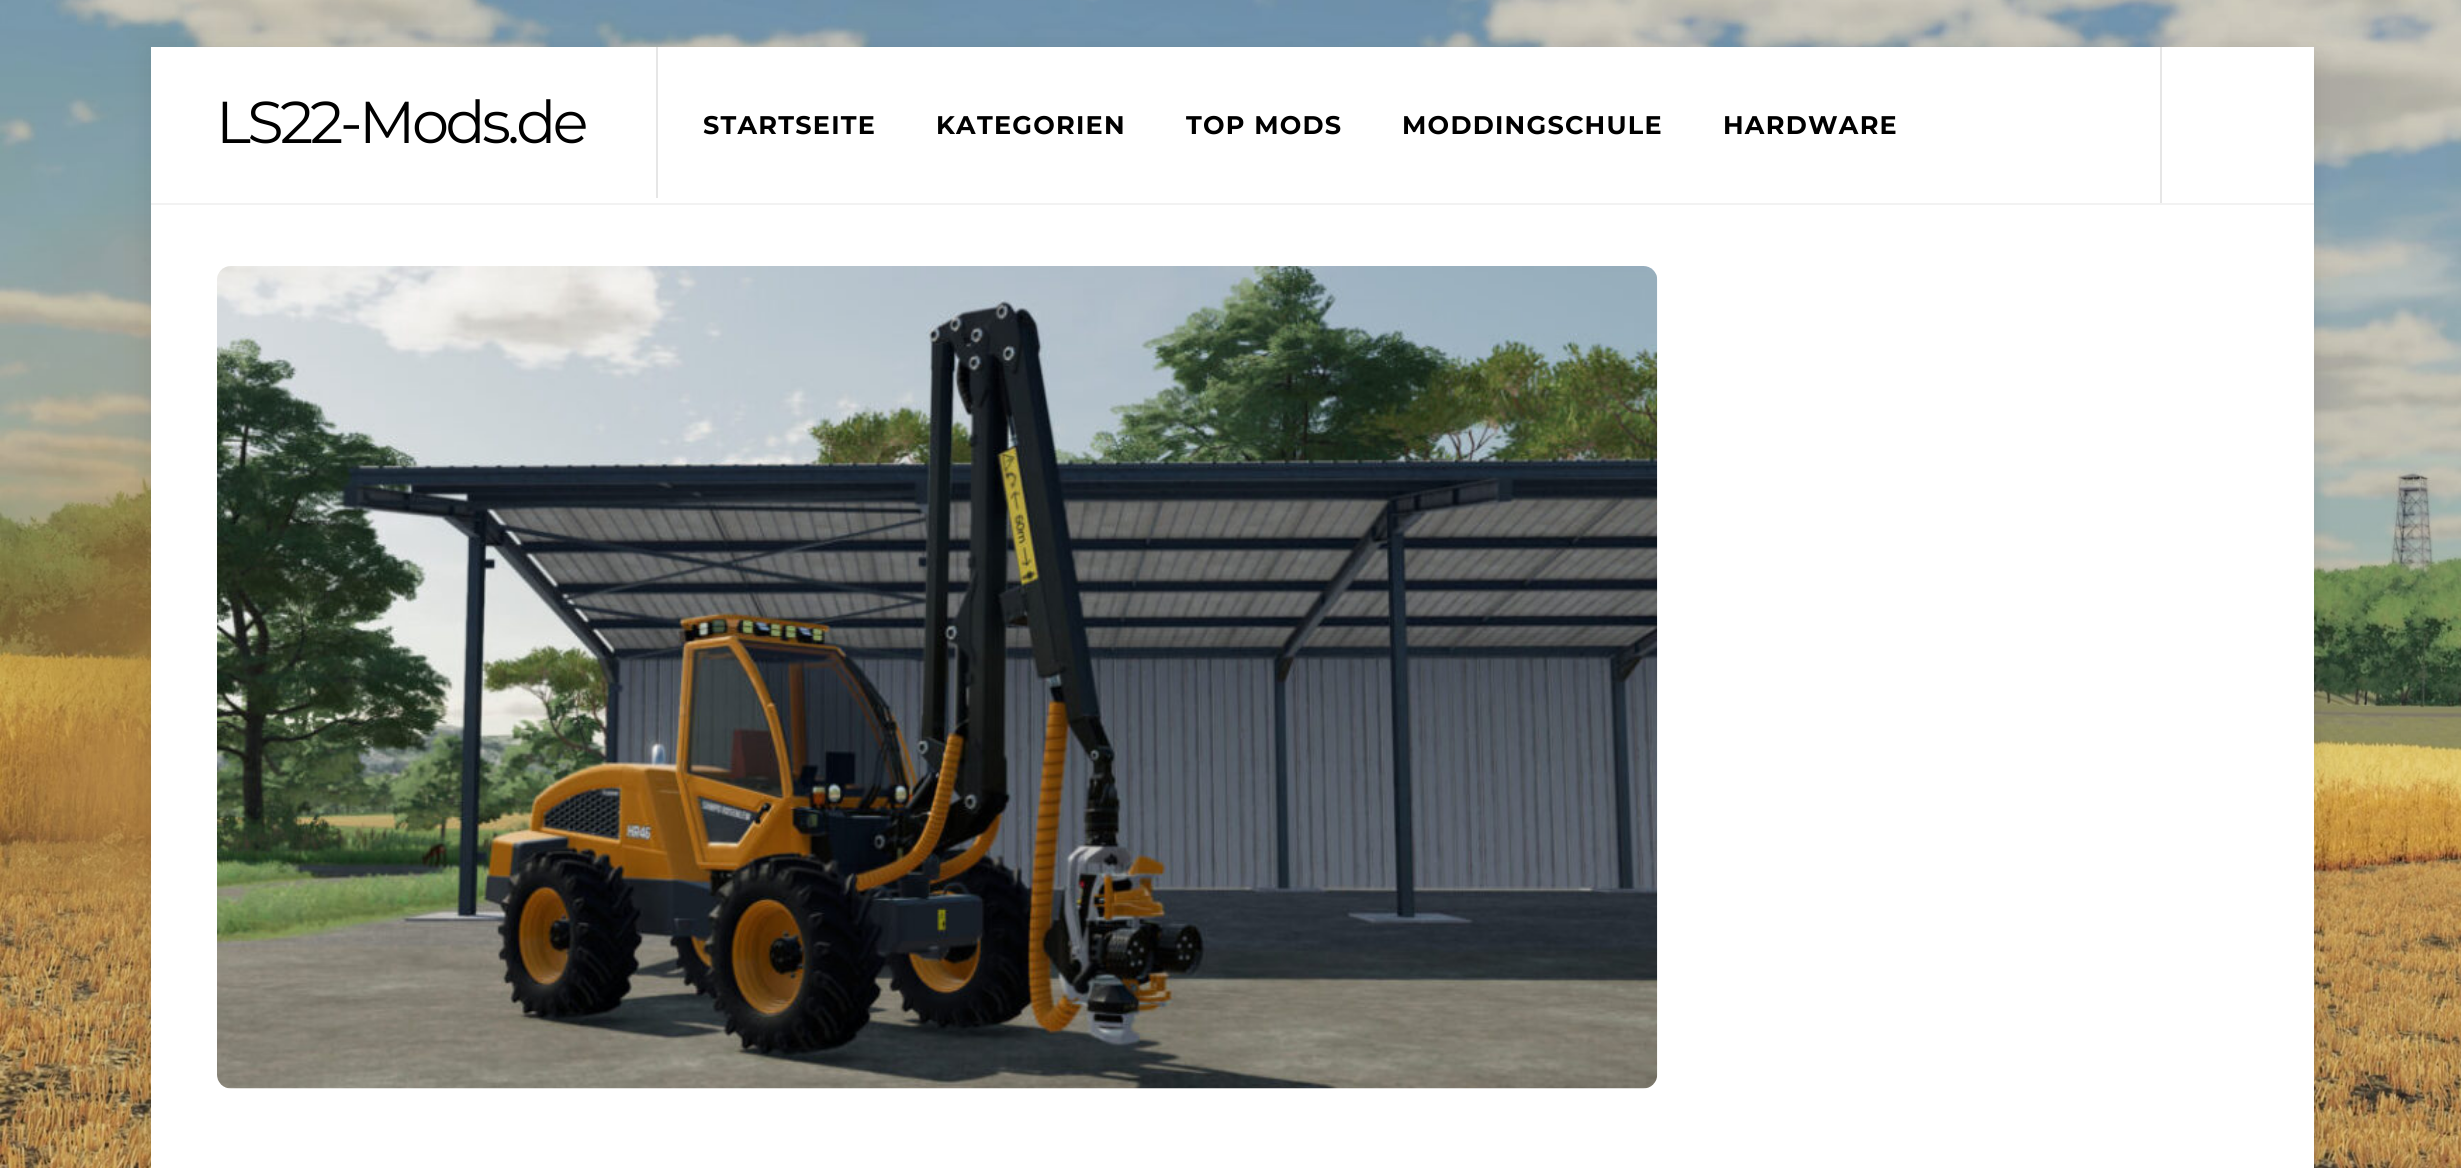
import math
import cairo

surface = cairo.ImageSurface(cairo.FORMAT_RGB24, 2461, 1168)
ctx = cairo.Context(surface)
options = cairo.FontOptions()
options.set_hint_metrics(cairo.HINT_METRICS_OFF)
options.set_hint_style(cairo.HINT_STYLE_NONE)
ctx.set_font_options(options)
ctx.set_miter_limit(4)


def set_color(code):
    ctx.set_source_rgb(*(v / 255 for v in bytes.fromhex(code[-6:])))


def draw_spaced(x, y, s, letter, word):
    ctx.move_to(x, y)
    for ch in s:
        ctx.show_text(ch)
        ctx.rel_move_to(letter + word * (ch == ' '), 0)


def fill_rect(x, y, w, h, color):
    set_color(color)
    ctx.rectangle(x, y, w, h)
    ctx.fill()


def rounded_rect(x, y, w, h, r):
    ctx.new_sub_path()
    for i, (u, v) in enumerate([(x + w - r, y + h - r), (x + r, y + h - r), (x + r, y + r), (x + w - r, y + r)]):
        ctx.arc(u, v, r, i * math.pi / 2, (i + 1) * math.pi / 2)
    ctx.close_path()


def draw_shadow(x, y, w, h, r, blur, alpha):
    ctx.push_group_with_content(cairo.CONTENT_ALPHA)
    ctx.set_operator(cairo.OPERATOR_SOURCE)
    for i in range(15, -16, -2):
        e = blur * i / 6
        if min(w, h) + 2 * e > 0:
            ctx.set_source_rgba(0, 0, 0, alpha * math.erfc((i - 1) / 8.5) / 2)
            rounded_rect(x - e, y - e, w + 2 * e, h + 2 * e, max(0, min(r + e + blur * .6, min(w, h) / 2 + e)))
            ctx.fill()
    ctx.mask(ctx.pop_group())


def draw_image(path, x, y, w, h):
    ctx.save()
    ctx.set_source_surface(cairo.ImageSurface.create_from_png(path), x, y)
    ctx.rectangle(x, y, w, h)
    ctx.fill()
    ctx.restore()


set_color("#ffffff")
ctx.paint()
draw_image("assets/img1.png", 0, 0, 2461, 1168)
set_color("#000000")
draw_shadow(151, 53, 2163, 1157, 0, 14, 0.1)
fill_rect(151, 47, 2163, 1121, "#ffffff")
fill_rect(151, 203, 2163, 2, "#f2f2f2")
fill_rect(656, 47, 2, 151, "#e6e6e6")
ctx.select_font_face("Montserrat")
ctx.set_font_size(59)
set_color("#000000")
draw_spaced(216, 143, "LS22-Mods.de", -3.5, 0)
ctx.select_font_face("Montserrat", cairo.FONT_SLANT_NORMAL, cairo.FONT_WEIGHT_BOLD)
ctx.set_font_size(25.5)
draw_spaced(703, 134, "STARTSEITE", 1.25, 0)
draw_spaced(936, 134, "KATEGORIEN", 1.25, 0)
draw_spaced(1186, 134, "TOP MODS", 1.25, 0)
draw_spaced(1402, 134, "MODDINGSCHULE", 1.25, 0)
draw_spaced(1723, 134, "HARDWARE", 1.25, 0)
fill_rect(2160, 47, 2, 156, "#e6e6e6")
draw_image("assets/img2.png", 217, 266, 1441, 823)
surface.write_to_png("output.png")
